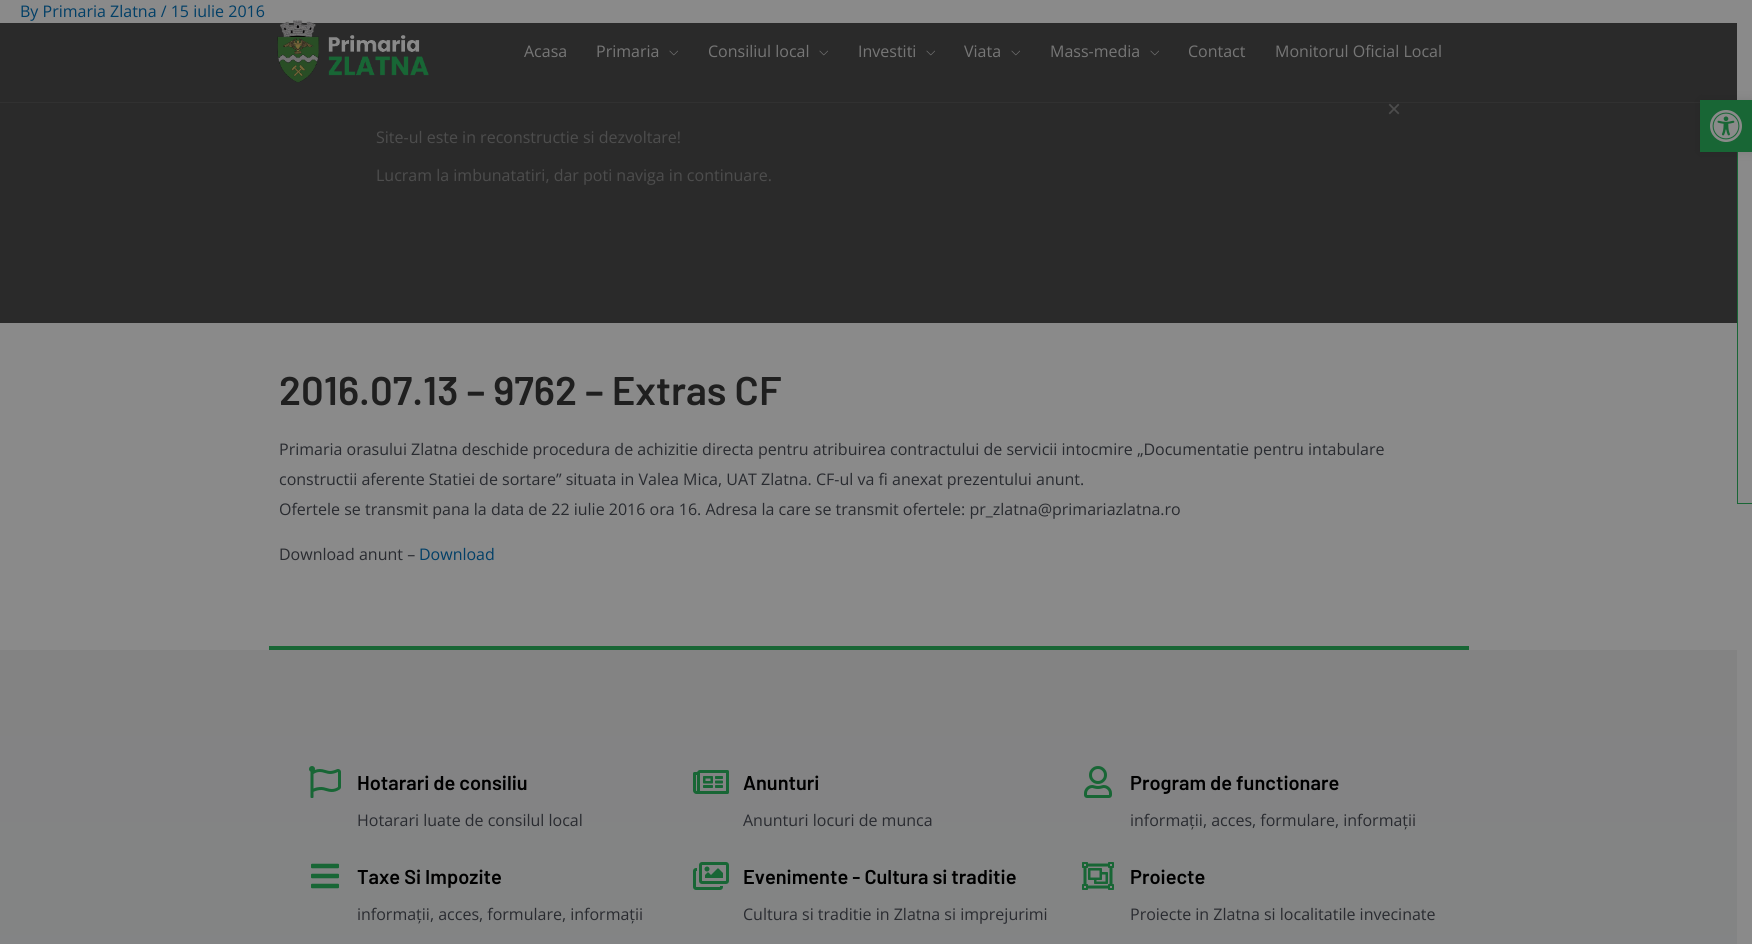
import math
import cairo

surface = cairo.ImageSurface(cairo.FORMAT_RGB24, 1752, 944)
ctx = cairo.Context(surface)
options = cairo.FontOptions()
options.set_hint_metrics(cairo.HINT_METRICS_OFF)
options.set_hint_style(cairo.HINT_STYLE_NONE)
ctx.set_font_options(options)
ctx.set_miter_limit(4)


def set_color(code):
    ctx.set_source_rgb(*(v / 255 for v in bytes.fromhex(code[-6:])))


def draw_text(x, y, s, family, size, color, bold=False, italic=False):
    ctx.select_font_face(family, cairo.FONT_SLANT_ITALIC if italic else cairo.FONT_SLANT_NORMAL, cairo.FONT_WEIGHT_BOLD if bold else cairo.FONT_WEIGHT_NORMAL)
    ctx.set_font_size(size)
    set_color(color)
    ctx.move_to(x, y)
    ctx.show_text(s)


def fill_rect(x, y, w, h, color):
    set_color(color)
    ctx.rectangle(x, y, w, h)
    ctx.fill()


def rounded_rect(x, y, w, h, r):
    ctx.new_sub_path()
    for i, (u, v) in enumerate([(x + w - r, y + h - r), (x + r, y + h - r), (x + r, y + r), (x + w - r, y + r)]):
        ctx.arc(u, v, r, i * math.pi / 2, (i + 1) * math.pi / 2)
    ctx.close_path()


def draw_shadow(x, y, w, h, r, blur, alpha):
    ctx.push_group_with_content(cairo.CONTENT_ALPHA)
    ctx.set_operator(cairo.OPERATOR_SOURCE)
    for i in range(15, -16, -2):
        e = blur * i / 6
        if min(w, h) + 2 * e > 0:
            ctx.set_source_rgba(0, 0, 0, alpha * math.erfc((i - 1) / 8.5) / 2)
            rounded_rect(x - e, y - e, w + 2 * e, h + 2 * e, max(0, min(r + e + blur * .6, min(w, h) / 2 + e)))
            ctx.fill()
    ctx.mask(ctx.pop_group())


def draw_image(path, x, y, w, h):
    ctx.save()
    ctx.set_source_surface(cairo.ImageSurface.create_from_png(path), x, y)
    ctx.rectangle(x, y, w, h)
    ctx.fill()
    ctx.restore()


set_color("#8a8a8a")
ctx.paint()
draw_text(20, 17, "By Primaria Zlatna / 15 iulie 2016", "Open Sans", 16, "#013f67")
fill_rect(0, 23, 1737, 300, "#2a2a2a")
fill_rect(0, 102, 1700, 1, "#313131")
draw_text(279, 405, "2016.07.13 – 9762 – Extras CF", "Barlow SemiBold", 40, "#1f1f1f")
draw_text(279, 455, "Primaria orasului Zlatna deschide procedura de achizitie directa pentru atribuirea contractului de servicii intocmire „Documentatie pentru intabulare", "Open Sans", 16, "#292b30")
draw_text(279, 485, "constructii aferente Statiei de sortare” situata in Valea Mica, UAT Zlatna. CF-ul va fi anexat prezentului anunt.", "Open Sans", 16, "#292b30")
draw_text(279, 515, "Ofertele se transmit pana la data de 22 iulie 2016 ora 16. Adresa la care se transmit ofertele: pr_zlatna@primariazlatna.ro", "Open Sans", 16, "#292b30")
draw_text(279, 560, "Download anunt –", "Open Sans", 16, "#292b30")
draw_text(419, 560, "Download", "Open Sans", 16, "#013f67")
draw_image("assets/img1.png", 277, 20, 152, 63)
draw_text(524, 57, "Acasa", "Open Sans", 16, "#767676")
draw_text(596, 57, "Primaria", "Open Sans", 16, "#767676")
draw_image("assets/img2.png", 669, 50, 9, 6)
draw_text(708, 57, "Consiliul local", "Open Sans", 16, "#767676")
draw_image("assets/img2.png", 819, 50, 9, 6)
draw_text(858, 57, "Investiti", "Open Sans", 16, "#767676")
draw_image("assets/img2.png", 926, 50, 9, 6)
draw_text(964, 57, "Viata", "Open Sans", 16, "#767676")
draw_image("assets/img2.png", 1011, 50, 9, 6)
draw_text(1050, 57, "Mass-media", "Open Sans", 16, "#767676")
draw_image("assets/img2.png", 1150, 50, 9, 6)
draw_text(1188, 57, "Contact", "Open Sans", 16, "#767676")
draw_text(1275, 57, "Monitorul Oficial Local", "Open Sans", 16, "#767676")
fill_rect(269, 646, 1200, 4, "#186635")
gradient = cairo.LinearGradient(869, 650, 869, 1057)
gradient.add_color_stop_rgba(0, 0.514, 0.514, 0.514, 1)
gradient.add_color_stop_rgba(1, 0.514, 0.518, 0.522, 1)
ctx.set_source(gradient)
ctx.rectangle(0, 650, 1737, 294)
ctx.fill()
draw_image("assets/img3.png", 309, 766, 32, 32)
draw_text(357, 790, "Hotarari de consiliu", "Barlow SemiBold", 20, "#000000")
draw_text(357, 826, "Hotarari luate de consilul local", "Open Sans", 16, "#292b30")
draw_image("assets/img4.png", 311, 863, 28, 26)
draw_text(357, 884, "Taxe Si Impozite", "Barlow SemiBold", 20, "#000000")
draw_text(357, 920, "informații, acces, formulare, informații", "Open Sans", 16, "#292b30")
draw_image("assets/img5.png", 693, 770, 36, 24)
draw_text(743, 790, "Anunturi", "Barlow SemiBold", 20, "#000000")
draw_text(743, 826, "Anunturi locuri de munca", "Open Sans", 16, "#292b30")
draw_image("assets/img6.png", 693, 862, 36, 28)
draw_text(743, 884, "Evenimente - Cultura si traditie", "Barlow SemiBold", 20, "#000000")
draw_text(743, 920, "Cultura si traditie in Zlatna si imprejurimi", "Open Sans", 16, "#292b30")
draw_image("assets/img7.png", 1084, 766, 28, 32)
draw_text(1130, 790, "Program de functionare", "Barlow SemiBold", 20, "#000000")
draw_text(1130, 826, "informații, acces, formulare, informații", "Open Sans", 16, "#292b30")
draw_image("assets/img8.png", 1082, 862, 32, 28)
draw_text(1130, 884, "Proiecte", "Barlow SemiBold", 20, "#000000")
draw_text(1130, 920, "Proiecte in Zlatna si localitatile invecinate", "Open Sans", 16, "#292b30")
ctx.rectangle(1737.5, 100.5, 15, 403)
set_color("#186635")
ctx.set_line_width(1)
ctx.stroke()
set_color("#000000")
draw_shadow(1700, 100, 52, 52, 0, 5, 0.1)
fill_rect(1700, 100, 52, 52, "#186635")
draw_image("assets/img9.png", 1710, 110, 32, 32)
draw_text(1387, 117, "×", "Liberation Sans", 24, "#4d4d4d")
draw_text(376, 143, "Site-ul este in reconstructie si dezvoltare!", "Open Sans", 16, "#4d4d4d")
draw_text(376, 181, "Lucram la imbunatatiri, dar poti naviga in continuare.", "Open Sans", 16, "#4d4d4d")
surface.write_to_png("output.png")
